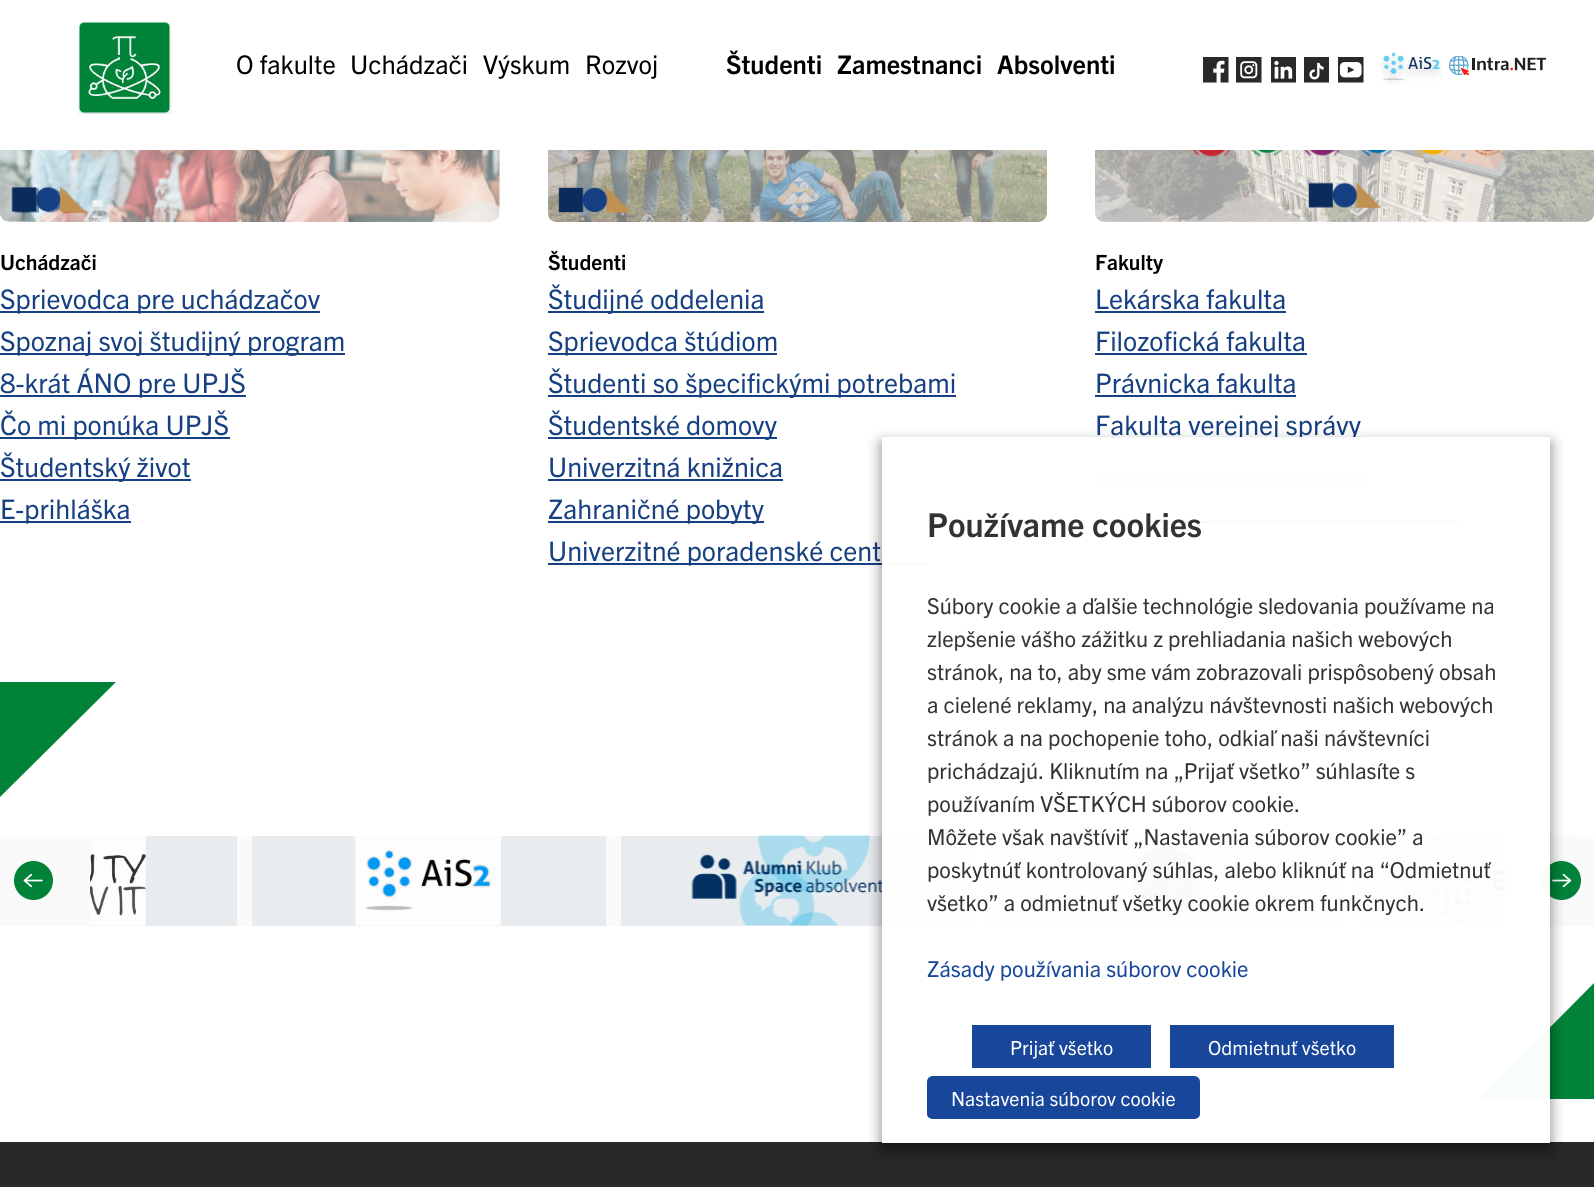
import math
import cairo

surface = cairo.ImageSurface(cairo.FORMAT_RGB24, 1594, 1187)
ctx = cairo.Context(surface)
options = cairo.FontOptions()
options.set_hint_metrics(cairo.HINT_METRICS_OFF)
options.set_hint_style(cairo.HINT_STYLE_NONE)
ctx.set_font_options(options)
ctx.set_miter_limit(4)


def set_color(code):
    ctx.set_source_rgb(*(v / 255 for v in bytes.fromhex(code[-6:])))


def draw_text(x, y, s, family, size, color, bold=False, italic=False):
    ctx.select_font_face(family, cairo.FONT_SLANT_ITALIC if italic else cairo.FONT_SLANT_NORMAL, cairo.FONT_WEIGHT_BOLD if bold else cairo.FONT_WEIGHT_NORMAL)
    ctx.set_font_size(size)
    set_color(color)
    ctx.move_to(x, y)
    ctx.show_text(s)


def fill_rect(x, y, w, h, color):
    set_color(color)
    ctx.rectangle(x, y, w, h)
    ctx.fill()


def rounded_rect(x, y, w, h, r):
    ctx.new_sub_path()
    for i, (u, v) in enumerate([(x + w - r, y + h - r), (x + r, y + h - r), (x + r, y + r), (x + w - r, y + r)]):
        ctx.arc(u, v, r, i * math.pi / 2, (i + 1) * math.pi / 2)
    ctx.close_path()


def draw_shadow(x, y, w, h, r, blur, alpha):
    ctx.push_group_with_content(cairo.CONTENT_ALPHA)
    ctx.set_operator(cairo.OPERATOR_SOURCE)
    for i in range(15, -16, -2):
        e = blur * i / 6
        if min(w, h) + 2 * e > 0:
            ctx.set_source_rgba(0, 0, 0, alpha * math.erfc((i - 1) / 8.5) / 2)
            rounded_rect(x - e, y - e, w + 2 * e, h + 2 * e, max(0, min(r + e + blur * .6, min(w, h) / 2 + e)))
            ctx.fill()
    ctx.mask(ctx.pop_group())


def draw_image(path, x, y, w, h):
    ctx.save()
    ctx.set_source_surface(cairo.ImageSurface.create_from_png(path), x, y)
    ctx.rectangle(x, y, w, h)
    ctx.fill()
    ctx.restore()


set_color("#ffffff")
ctx.paint()
draw_image("assets/img1.png", 78, 22, 94, 92)
draw_text(236, 74, "O fakulte", "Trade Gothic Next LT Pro", 25.75, "#000000")
draw_text(350, 74, "Uchádzači", "Trade Gothic Next LT Pro", 25.75, "#000000")
draw_text(483, 74, "Výskum", "Trade Gothic Next LT Pro", 25.75, "#000000")
draw_text(585, 74, "Rozvoj", "Trade Gothic Next LT Pro", 25.75, "#000000")
draw_text(726, 74, "Študenti", "Trade Gothic Next LT Pro", 25.75, "#000000", bold=True)
draw_text(837, 74, "Zamestnanci", "Trade Gothic Next LT Pro", 25.75, "#000000", bold=True)
draw_text(997, 74, "Absolventi", "Trade Gothic Next LT Pro", 25.75, "#000000", bold=True)
draw_image("assets/img2.png", 1203, 57, 26, 26)
draw_image("assets/img3.png", 1236, 57, 26, 26)
draw_image("assets/img4.png", 1271, 57, 25, 26)
draw_image("assets/img5.png", 1304, 57, 25, 26)
draw_image("assets/img6.png", 1338, 57, 26, 26)
draw_image("assets/img7.png", 1381, 52, 61, 32)
draw_image("assets/img8.png", 1449, 56, 97, 19)
draw_image("assets/img9.png", 0, 150, 500, 72)
draw_text(0, 270, "Uchádzači", "Trade Gothic Next LT Pro", 21, "#000000", bold=True)
fill_rect(0, 311, 320, 2, "#164082")
draw_text(0, 309, "Sprievodca pre uchádzačov", "Trade Gothic Next LT Pro", 27, "#164082")
fill_rect(0, 353, 345, 2, "#164082")
draw_text(0, 351, "Spoznaj svoj študijný program", "Trade Gothic Next LT Pro", 27, "#164082")
fill_rect(0, 395, 246, 2, "#164082")
draw_text(0, 393, "8-krát ÁNO pre UPJŠ", "Trade Gothic Next LT Pro", 27, "#164082")
fill_rect(0, 437, 230, 2, "#164082")
draw_text(0, 435, "Čo mi ponúka UPJŠ", "Trade Gothic Next LT Pro", 27, "#164082")
fill_rect(0, 479, 191, 2, "#164082")
draw_text(0, 477, "Študentský život", "Trade Gothic Next LT Pro", 27, "#164082")
fill_rect(0, 521, 131, 2, "#164082")
draw_text(0, 519, "E-prihláška", "Trade Gothic Next LT Pro", 27, "#164082")
draw_image("assets/img10.png", 548, 150, 499, 72)
draw_text(548, 270, "Študenti", "Trade Gothic Next LT Pro", 21, "#000000", bold=True)
fill_rect(548, 311, 216, 2, "#164082")
draw_text(548, 309, "Študijné oddelenia", "Trade Gothic Next LT Pro", 27, "#164082")
fill_rect(548, 353, 229, 2, "#164082")
draw_text(548, 351, "Sprievodca štúdiom", "Trade Gothic Next LT Pro", 27, "#164082")
fill_rect(548, 395, 408, 2, "#164082")
draw_text(548, 393, "Študenti so špecifickými potrebami", "Trade Gothic Next LT Pro", 27, "#164082")
fill_rect(548, 437, 229, 2, "#164082")
draw_text(548, 435, "Študentské domovy", "Trade Gothic Next LT Pro", 27, "#164082")
draw_text(548, 477, "Univerzitná knižnica", "Trade Gothic Next LT Pro", 27, "#164082")
fill_rect(548, 479, 235, 2, "#164082")
fill_rect(548, 521, 216, 2, "#164082")
draw_text(548, 519, "Zahraničné pobyty", "Trade Gothic Next LT Pro", 27, "#164082")
fill_rect(548, 563, 379, 2, "#164082")
draw_text(548, 561, "Univerzitné poradenské cent", "Trade Gothic Next LT Pro", 27, "#164082")
draw_image("assets/img11.png", 1095, 150, 499, 72)
draw_text(1095, 270, "Fakulty", "Trade Gothic Next LT Pro", 21, "#000000", bold=True)
draw_text(1095, 309, "Lekárska fakulta", "Trade Gothic Next LT Pro", 27, "#164082")
fill_rect(1095, 311, 191, 2, "#164082")
draw_text(1095, 351, "Filozofická fakulta", "Trade Gothic Next LT Pro", 27, "#164082")
fill_rect(1095, 353, 212, 2, "#164082")
draw_text(1095, 393, "Právnicka fakulta", "Trade Gothic Next LT Pro", 27, "#164082")
fill_rect(1095, 395, 201, 2, "#164082")
fill_rect(1095, 437, 266, 2, "#164082")
draw_text(1095, 435, "Fakulta verejnej správy", "Trade Gothic Next LT Pro", 27, "#164082")
fill_rect(1095, 479, 269, 2, "#164082")
fill_rect(1095, 521, 363, 2, "#164082")
set_color("#008338")
ctx.new_path()
ctx.move_to(0, 682)
ctx.line_to(116, 682)
ctx.line_to(0, 797)
ctx.close_path()
ctx.fill()
fill_rect(0, 836, 1594, 90, "#fafafa")
set_color("#008338")
ctx.arc(33.5, 880.5, 19.5, 0, 2 * math.pi)
ctx.fill()
draw_image("assets/img12.png", 23, 873, 20, 15)
fill_rect(90, 836, 147, 90, "#e9ecef")
draw_image("assets/img13.png", 90, 836, 56, 90)
fill_rect(252, 836, 354, 90, "#e9ecef")
draw_image("assets/img14.png", 355, 836, 146, 90)
fill_rect(621, 836, 354, 90, "#e9ecef")
draw_image("assets/img15.png", 691, 835, 213, 91)
fill_rect(989, 836, 354, 90, "#e9ecef")
draw_image("assets/img16.png", 1121, 835, 90, 91)
fill_rect(1358, 836, 147, 90, "#e9ecef")
draw_image("assets/img17.png", 1403, 838, 102, 85)
set_color("#008338")
ctx.arc(1561.5, 880.5, 19.5, 0, 2 * math.pi)
ctx.fill()
draw_image("assets/img18.png", 1552, 873, 20, 15)
ctx.new_path()
ctx.move_to(1594, 1099)
ctx.line_to(1479, 1099)
ctx.line_to(1594, 983)
ctx.close_path()
ctx.fill()
fill_rect(0, 1142, 1594, 45, "#292929")
ctx.save()
ctx.set_fill_rule(cairo.FILL_RULE_EVEN_ODD)
ctx.new_path()
ctx.move_to(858, 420)
ctx.line_to(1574, 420)
ctx.line_to(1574, 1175)
ctx.line_to(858, 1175)
ctx.close_path()
ctx.move_to(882, 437)
ctx.line_to(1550, 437)
ctx.line_to(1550, 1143)
ctx.line_to(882, 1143)
ctx.close_path()
ctx.clip()
set_color("#000000")
draw_shadow(882, 444, 668, 707, 0, 7.5, 0.5)
ctx.restore()
ctx.set_source_rgba(1, 1, 1, 0.97)
ctx.rectangle(882, 437, 668, 706)
ctx.fill()
draw_text(927, 537, "Používame cookies", "Trade Gothic Next LT Pro", 33, "#333333", bold=True)
draw_text(927, 614, "Súbory cookie a ďalšie technológie sledovania používame na", "Trade Gothic Next LT Pro", 22, "#333333")
draw_text(927, 647, "zlepšenie vášho zážitku z prehliadania našich webových", "Trade Gothic Next LT Pro", 22, "#333333")
draw_text(927, 680, "stránok, na to, aby sme vám zobrazovali prispôsobený obsah", "Trade Gothic Next LT Pro", 22, "#333333")
draw_text(927, 713, "a cielené reklamy, na analýzu návštevnosti našich webových", "Trade Gothic Next LT Pro", 22, "#333333")
draw_text(927, 746, "stránok a na pochopenie toho, odkiaľ naši návštevníci", "Trade Gothic Next LT Pro", 22, "#333333")
draw_text(927, 779, "prichádzajú. Kliknutím na „Prijať všetko” súhlasíte s", "Trade Gothic Next LT Pro", 22, "#333333")
draw_text(927, 812, "používaním VŠETKÝCH súborov cookie.", "Trade Gothic Next LT Pro", 22, "#333333")
draw_text(927, 845, "Môžete však navštíviť „Nastavenia súborov cookie” a", "Trade Gothic Next LT Pro", 22, "#333333")
draw_text(927, 878, "poskytnúť kontrolovaný súhlas, alebo kliknúť na “Odmietnuť", "Trade Gothic Next LT Pro", 22, "#333333")
draw_text(927, 911, "všetko” a odmietnuť všetky cookie okrem funkčnych.", "Trade Gothic Next LT Pro", 22, "#333333")
draw_text(927, 977, "Zásady používania súborov cookie", "Trade Gothic Next LT Pro", 22, "#18469b")
fill_rect(972, 1025, 179, 43, "#18469b")
draw_text(1010, 1055, "Prijať všetko", "Trade Gothic Next LT Pro", 19.5, "#ffffff")
fill_rect(1170, 1025, 224, 43, "#18469b")
draw_text(1208, 1055, "Odmietnuť všetko", "Trade Gothic Next LT Pro", 19.5, "#ffffff")
set_color("#18469b")
ctx.new_path()
ctx.move_to(933, 1076)
ctx.line_to(1194, 1076)
ctx.curve_to(1197, 1076, 1200, 1078, 1200, 1082)
ctx.line_to(1200, 1114)
ctx.curve_to(1200, 1117, 1197, 1119, 1194, 1119)
ctx.line_to(933, 1119)
ctx.curve_to(930, 1119, 927, 1117, 927, 1114)
ctx.line_to(927, 1082)
ctx.curve_to(927, 1078, 930, 1076, 933, 1076)
ctx.close_path()
ctx.fill()
draw_text(951, 1106, "Nastavenia súborov cookie", "Trade Gothic Next LT Pro", 19.5, "#ffffff")
surface.write_to_png("output.png")
